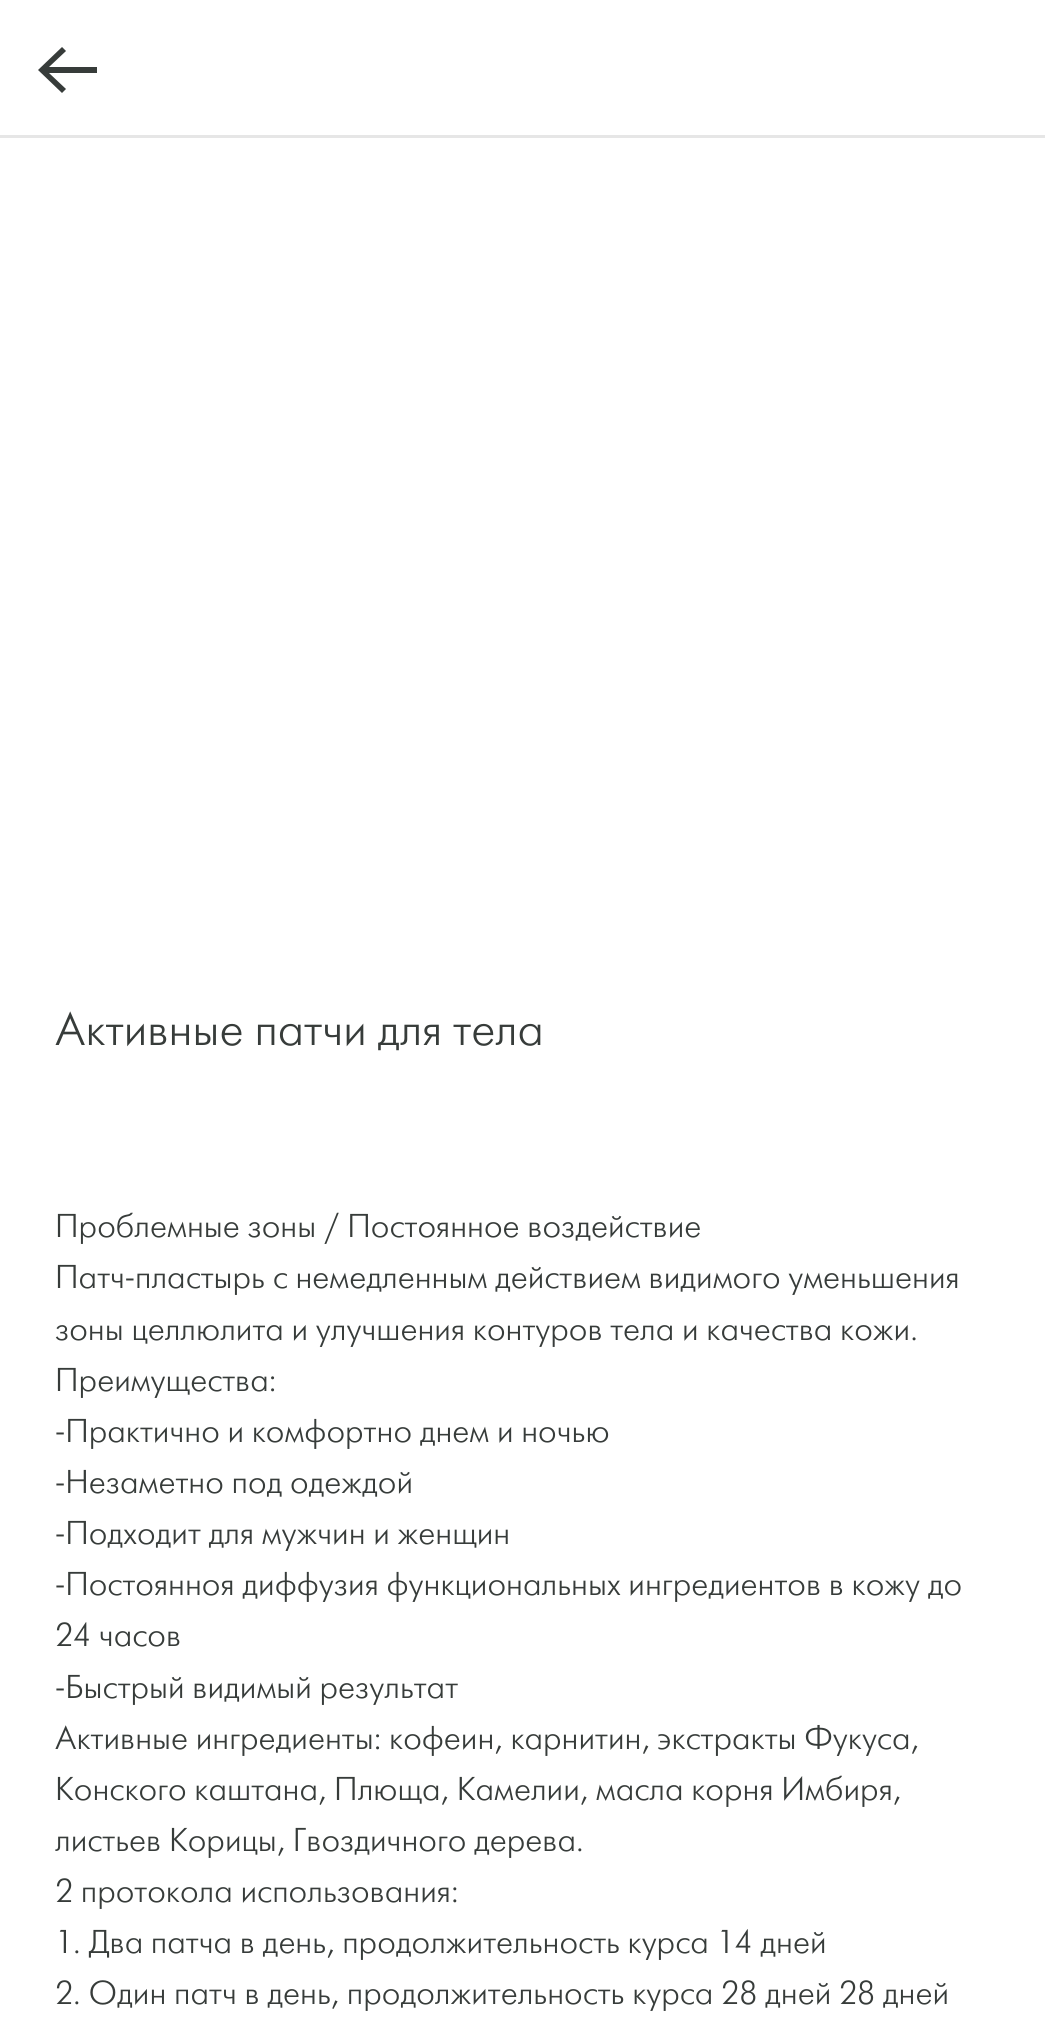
import math
import cairo

surface = cairo.ImageSurface(cairo.FORMAT_RGB24, 1045, 2034)
ctx = cairo.Context(surface)
options = cairo.FontOptions()
options.set_hint_metrics(cairo.HINT_METRICS_OFF)
options.set_hint_style(cairo.HINT_STYLE_NONE)
ctx.set_font_options(options)
ctx.set_miter_limit(4)


def set_color(code):
    ctx.set_source_rgb(*(v / 255 for v in bytes.fromhex(code[-6:])))


def draw_text(x, y, s, family, size, color, bold=False, italic=False):
    ctx.select_font_face(family, cairo.FONT_SLANT_ITALIC if italic else cairo.FONT_SLANT_NORMAL, cairo.FONT_WEIGHT_BOLD if bold else cairo.FONT_WEIGHT_NORMAL)
    ctx.set_font_size(size)
    set_color(color)
    ctx.move_to(x, y)
    ctx.show_text(s)


def fill_rect(x, y, w, h, color):
    set_color(color)
    ctx.rectangle(x, y, w, h)
    ctx.fill()


set_color("#ffffff")
ctx.paint()
fill_rect(0, 135, 1045, 3, "#e6e6e6")
set_color("#373c3a")
ctx.new_path()
ctx.move_to(62, 47)
ctx.line_to(66, 51)
ctx.line_to(49, 67)
ctx.line_to(97, 67)
ctx.line_to(97, 73)
ctx.line_to(49, 73)
ctx.line_to(66, 89)
ctx.line_to(62, 93)
ctx.line_to(38, 70)
ctx.close_path()
ctx.fill()
draw_text(55, 1045, "Активные патчи для тела", "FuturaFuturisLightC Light", 46.75, "#373c3a")
draw_text(55, 1237, "Проблемные зоны / Постоянное воздействие", "FuturaFuturisLightC Light", 33, "#373c3a")
draw_text(55, 1288, "Патч-пластырь с немедленным действием видимого уменьшения", "FuturaFuturisLightC Light", 33, "#373c3a")
draw_text(55, 1340, "зоны целлюлита и улучшения контуров тела и качества кожи.", "FuturaFuturisLightC Light", 33, "#373c3a")
draw_text(55, 1391, "Преимущества:", "FuturaFuturisLightC Light", 33, "#373c3a")
draw_text(55, 1442, "-Практично и комфортно днем и ночью", "FuturaFuturisLightC Light", 33, "#373c3a")
draw_text(55, 1493, "-Незаметно под одеждой", "FuturaFuturisLightC Light", 33, "#373c3a")
draw_text(55, 1544, "-Подходит для мужчин и женщин", "FuturaFuturisLightC Light", 33, "#373c3a")
draw_text(55, 1595, "-Постоянноя диффузия функциональных ингредиентов в кожу до", "FuturaFuturisLightC Light", 33, "#373c3a")
draw_text(55, 1646, "24 часов", "FuturaFuturisLightC Light", 33, "#373c3a")
draw_text(55, 1698, "-Быстрый видимый результат", "FuturaFuturisLightC Light", 33, "#373c3a")
draw_text(55, 1749, "Активные ингредиенты: кофеин, карнитин, экстракты Фукуса,", "FuturaFuturisLightC Light", 33, "#373c3a")
draw_text(55, 1800, "Конского каштана, Плюща, Камелии, масла корня Имбиря,", "FuturaFuturisLightC Light", 33, "#373c3a")
draw_text(55, 1851, "листьев Корицы, Гвоздичного дерева.", "FuturaFuturisLightC Light", 33, "#373c3a")
draw_text(55, 1902, "2 протокола использования:", "FuturaFuturisLightC Light", 33, "#373c3a")
draw_text(55, 1953, "1. Два патча в день, продолжительность курса 14 дней", "FuturaFuturisLightC Light", 33, "#373c3a")
draw_text(55, 2004, "2. Один патч в день, продолжительность курса 28 дней 28 дней", "FuturaFuturisLightC Light", 33, "#373c3a")
surface.write_to_png("output.png")
